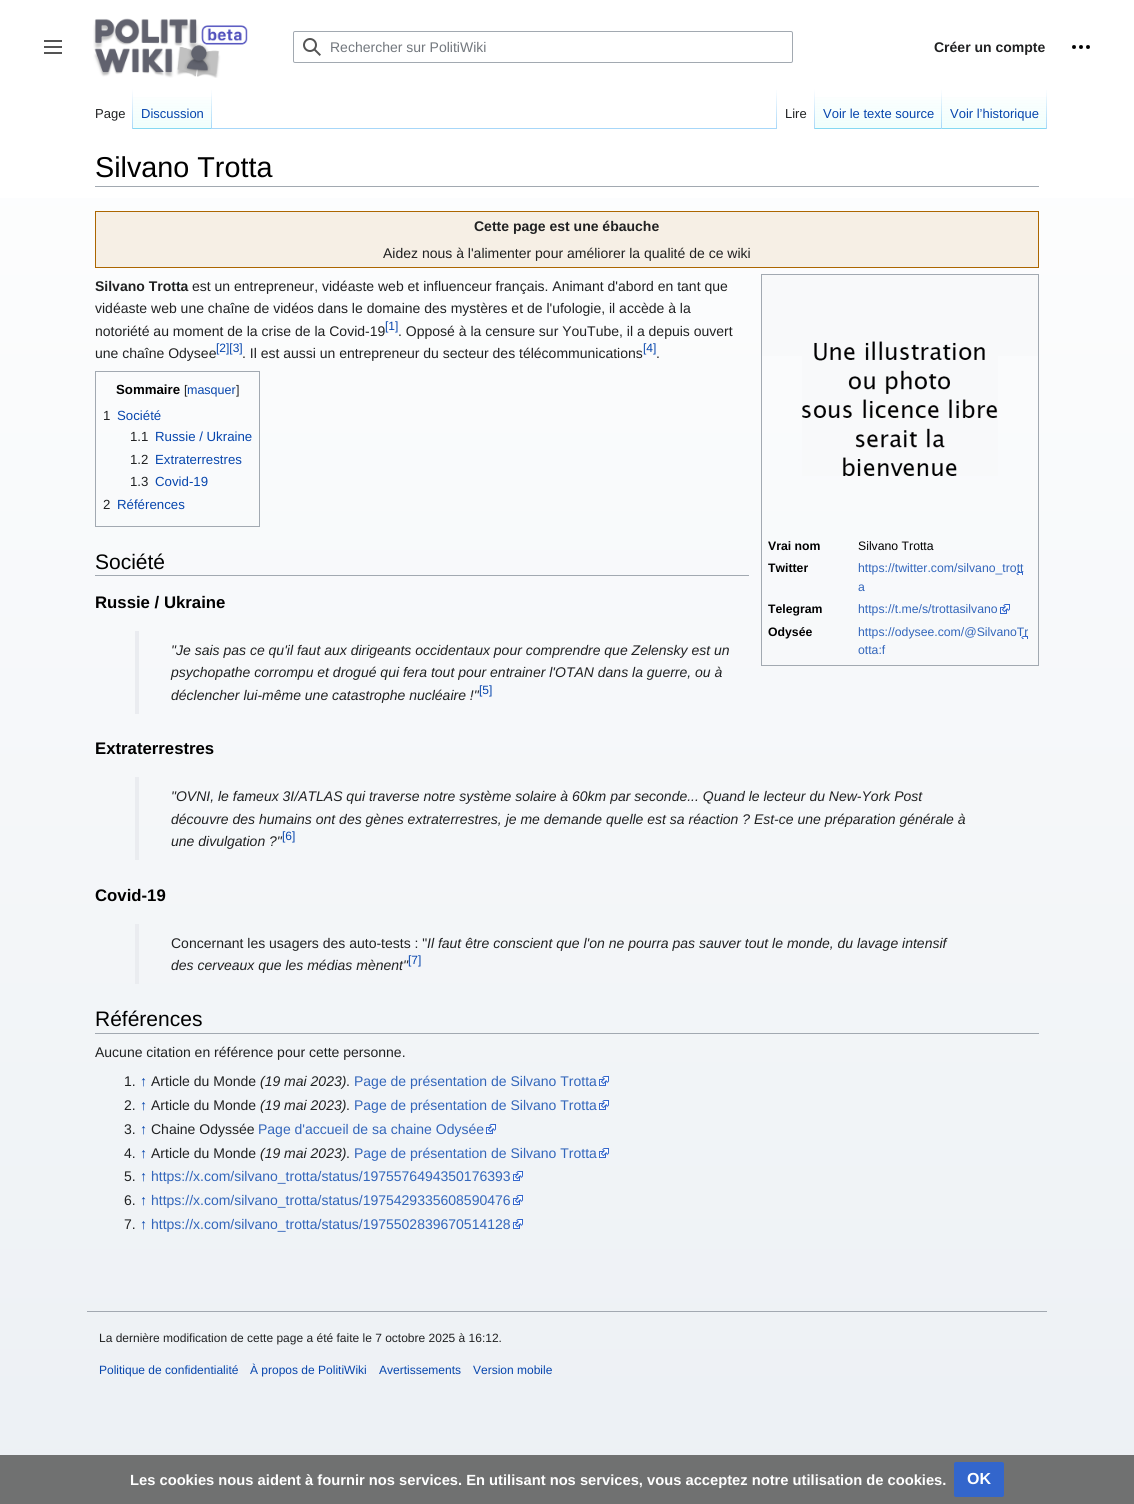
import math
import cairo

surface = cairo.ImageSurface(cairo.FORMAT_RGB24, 1134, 1504)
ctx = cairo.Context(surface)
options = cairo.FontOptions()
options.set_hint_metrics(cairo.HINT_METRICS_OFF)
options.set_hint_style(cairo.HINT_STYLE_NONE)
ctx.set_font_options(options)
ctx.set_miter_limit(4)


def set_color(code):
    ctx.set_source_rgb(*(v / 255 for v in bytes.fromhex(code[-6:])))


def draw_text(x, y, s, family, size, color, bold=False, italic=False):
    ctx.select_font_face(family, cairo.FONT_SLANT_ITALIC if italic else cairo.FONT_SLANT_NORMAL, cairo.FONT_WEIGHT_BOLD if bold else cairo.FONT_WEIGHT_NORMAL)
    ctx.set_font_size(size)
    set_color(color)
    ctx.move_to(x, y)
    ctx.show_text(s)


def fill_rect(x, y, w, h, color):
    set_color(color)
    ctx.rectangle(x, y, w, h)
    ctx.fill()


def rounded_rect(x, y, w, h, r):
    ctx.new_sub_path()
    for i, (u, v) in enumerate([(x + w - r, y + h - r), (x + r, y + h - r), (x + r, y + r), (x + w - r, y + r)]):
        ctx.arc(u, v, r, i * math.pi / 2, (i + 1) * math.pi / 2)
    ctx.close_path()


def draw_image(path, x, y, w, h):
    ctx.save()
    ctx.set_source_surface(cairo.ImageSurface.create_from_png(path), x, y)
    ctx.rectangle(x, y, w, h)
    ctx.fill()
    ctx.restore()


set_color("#ffffff")
ctx.paint()
gradient = cairo.LinearGradient(567, 0, 567, 1504)
gradient.add_color_stop_rgba(0, 1, 1, 1, 1)
gradient.add_color_stop_rgba(1, 0.925, 0.941, 0.957, 1)
ctx.set_source(gradient)
ctx.rectangle(0, 198, 1134, 1257)
ctx.fill()
draw_image("assets/img1.png", 44, 40, 18, 14)
draw_image("assets/img2.png", 93, 18, 155, 60)
rounded_rect(293.5, 31.5, 499, 31, 1.5)
set_color("#a2a9b1")
ctx.set_line_width(1)
ctx.stroke()
draw_image("assets/img3.png", 303, 38, 18, 18)
draw_text(330, 52, "Rechercher sur PolitiWiki", "Liberation Sans", 14, "#72777d")
draw_text(934, 52, "Créer un compte", "Liberation Sans", 14, "#202122", bold=True)
draw_image("assets/img4.png", 1072, 45, 18, 4)
gradient = cairo.LinearGradient(133, 89, 133, 129)
gradient.add_color_stop_rgba(0, 1, 1, 1, 1)
gradient.add_color_stop_rgba(1, 0.655, 0.843, 0.976, 1)
ctx.set_source(gradient)
ctx.rectangle(132, 89, 1, 40)
ctx.fill()
draw_text(95, 118, "Page", "Liberation Sans", 13, "#202122")
fill_rect(133, 128, 914, 1, "#a7d7f9")
gradient = cairo.LinearGradient(173, 129, 173, 89)
gradient.add_color_stop_rgba(0, 0.467, 0.757, 0.965, 1)
gradient.add_color_stop_rgba(0.03, 0.404, 0.973, 0.878, 0.1)
gradient.add_color_stop_rgba(1, 0.404, 0.973, 0.878, 0)
ctx.set_source(gradient)
ctx.rectangle(133, 97, 79, 32)
ctx.fill()
gradient = cairo.LinearGradient(212, 89, 212, 129)
gradient.add_color_stop_rgba(0, 0.655, 0.843, 0.976, 0)
gradient.add_color_stop_rgba(1, 0.655, 0.843, 0.976, 1)
ctx.set_source(gradient)
ctx.rectangle(211, 89, 1, 40)
ctx.fill()
draw_text(141, 118, "Discussion", "Liberation Sans", 13, "#0645ad")
gradient = cairo.LinearGradient(777, 89, 777, 129)
gradient.add_color_stop_rgba(0, 0.655, 0.843, 0.976, 0)
gradient.add_color_stop_rgba(1, 0.655, 0.843, 0.976, 1)
ctx.set_source(gradient)
ctx.rectangle(776, 89, 1, 40)
ctx.fill()
fill_rect(777, 128, 37, 1, "#ffffff")
gradient = cairo.LinearGradient(815, 89, 815, 129)
gradient.add_color_stop_rgba(0, 1, 1, 1, 1)
gradient.add_color_stop_rgba(1, 0.655, 0.843, 0.976, 1)
ctx.set_source(gradient)
ctx.rectangle(814, 89, 1, 40)
ctx.fill()
draw_text(785, 118, "Lire", "Liberation Sans", 13, "#202122")
gradient = cairo.LinearGradient(879, 129, 879, 89)
gradient.add_color_stop_rgba(0, 0.467, 0.757, 0.965, 1)
gradient.add_color_stop_rgba(0.03, 0.404, 0.973, 0.878, 0.1)
gradient.add_color_stop_rgba(1, 0.404, 0.973, 0.878, 0)
ctx.set_source(gradient)
ctx.rectangle(815, 97, 127, 32)
ctx.fill()
gradient = cairo.LinearGradient(942, 89, 942, 129)
gradient.add_color_stop_rgba(0, 0.655, 0.843, 0.976, 0)
gradient.add_color_stop_rgba(1, 0.655, 0.843, 0.976, 1)
ctx.set_source(gradient)
ctx.rectangle(941, 89, 1, 40)
ctx.fill()
draw_text(823, 118, "Voir le texte source", "Liberation Sans", 13, "#0645ad")
gradient = cairo.LinearGradient(995, 129, 995, 89)
gradient.add_color_stop_rgba(0, 0.467, 0.757, 0.965, 1)
gradient.add_color_stop_rgba(0.03, 0.404, 0.973, 0.878, 0.1)
gradient.add_color_stop_rgba(1, 0.404, 0.973, 0.878, 0)
ctx.set_source(gradient)
ctx.rectangle(942, 97, 105, 32)
ctx.fill()
gradient = cairo.LinearGradient(1047, 89, 1047, 129)
gradient.add_color_stop_rgba(0, 0.655, 0.843, 0.976, 0)
gradient.add_color_stop_rgba(1, 0.655, 0.843, 0.976, 1)
ctx.set_source(gradient)
ctx.rectangle(1046, 89, 1, 40)
ctx.fill()
draw_text(950, 118, "Voir l’historique", "Liberation Sans", 13, "#0645ad")
fill_rect(95, 186, 944, 1, "#a2a9b1")
draw_text(95, 177, "Silvano Trotta", "Liberation Sans", 28.75, "#000000")
set_color("#f6efe5")
ctx.rectangle(95.5, 211.5, 943, 56)
ctx.fill_preserve()
set_color("#ac6600")
ctx.stroke()
draw_text(474, 231, "Cette page est une ébauche", "Liberation Sans", 14, "#202122", bold=True)
draw_text(383, 258, "Aidez nous à l'alimenter pour améliorer la qualité de ce wiki", "Liberation Sans", 14, "#202122")
draw_text(95, 291, "Silvano Trotta", "Liberation Sans", 14, "#202122", bold=True)
draw_text(192, 291, "est un entrepreneur, vidéaste web et influenceur français. Animant d'abord en tant que", "Liberation Sans", 14, "#202122")
draw_text(95, 313, "vidéaste web une chaîne de vidéos dans le domaine des mystères et de l'ufologie, il accède à la", "Liberation Sans", 14, "#202122")
draw_text(95, 336, "notoriété au moment de la crise de la Covid-19", "Liberation Sans", 14, "#202122")
draw_text(385, 330, "[1]", "Liberation Sans", 12, "#0645ad")
draw_text(398, 336, ". Opposé à la censure sur YouTube, il a depuis ouvert", "Liberation Sans", 14, "#202122")
draw_text(95, 358, "une chaîne Odysee", "Liberation Sans", 14, "#202122")
draw_text(216, 352, "[2][3]", "Liberation Sans", 12, "#0645ad")
draw_text(242, 358, ". Il est aussi un entrepreneur du secteur des télécommunications", "Liberation Sans", 14, "#202122")
draw_text(643, 352, "[4]", "Liberation Sans", 12, "#0645ad")
draw_text(656, 358, ".", "Liberation Sans", 14, "#202122")
ctx.rectangle(95.5, 371.5, 164, 155)
set_color("#a2a9b1")
ctx.stroke()
draw_text(116, 394, "Sommaire", "Liberation Sans", 13.25, "#000000", bold=True)
draw_text(184, 394, "[", "Liberation Sans", 12.5, "#202122")
draw_text(187, 394, "masquer", "Liberation Sans", 12.5, "#0645ad")
draw_text(236, 394, "]", "Liberation Sans", 12.5, "#202122")
draw_text(103, 420, "1", "Liberation Sans", 13.25, "#202122")
draw_text(117, 420, "Société", "Liberation Sans", 13.25, "#0645ad")
draw_text(130, 441, "1.1", "Liberation Sans", 13.25, "#202122")
draw_text(155, 441, "Russie / Ukraine", "Liberation Sans", 13.25, "#0645ad")
draw_text(130, 464, "1.2", "Liberation Sans", 13.25, "#202122")
draw_text(155, 464, "Extraterrestres", "Liberation Sans", 13.25, "#0645ad")
draw_text(130, 486, "1.3", "Liberation Sans", 13.25, "#202122")
draw_text(155, 486, "Covid-19", "Liberation Sans", 13.25, "#0645ad")
draw_text(103, 509, "2", "Liberation Sans", 13.25, "#202122")
draw_text(117, 509, "Références", "Liberation Sans", 13.25, "#0645ad")
fill_rect(95, 575, 654, 1, "#a2a9b1")
draw_text(95, 569, "Société", "Liberation Sans", 21, "#000000")
fill_rect(762, 275, 276, 81, "#f8f9fa")
ctx.rectangle(761.5, 274.5, 277, 391)
set_color("#a2a9b1")
ctx.stroke()
draw_image("assets/img5.png", 802, 341, 196, 135)
draw_text(768, 550, "Vrai nom", "Liberation Sans", 12.25, "#000000", bold=True)
draw_text(858, 550, "Silvano Trotta", "Liberation Sans", 12.25, "#000000")
draw_text(768, 572, "Twitter", "Liberation Sans", 12.25, "#000000", bold=True)
draw_image("assets/img6.png", 1016, 572, 7, 3)
draw_text(858, 572, "https://twitter.com/silvano_trott", "Liberation Sans", 12.25, "#3366bb")
draw_text(858, 591, "a", "Liberation Sans", 12.25, "#3366bb")
draw_text(768, 613, "Telegram", "Liberation Sans", 12.25, "#000000", bold=True)
draw_text(858, 613, "https://t.me/s/trottasilvano", "Liberation Sans", 12.25, "#3366bb")
draw_image("assets/img7.png", 1000, 604, 10, 10)
draw_text(768, 636, "Odysée", "Liberation Sans", 12.25, "#000000", bold=True)
draw_image("assets/img6.png", 1021, 636, 7, 3)
draw_text(858, 636, "https://odysee.com/@SilvanoTr", "Liberation Sans", 12.25, "#3366bb")
draw_text(858, 654, "otta:f", "Liberation Sans", 12.25, "#3366bb")
draw_text(95, 608, "Russie / Ukraine", "Liberation Sans", 16.75, "#000000", bold=True)
fill_rect(135, 631, 4, 83, "#eaecf0")
draw_text(171, 655, "\"Je sais pas ce qu'il faut aux dirigeants occidentaux pour comprendre que Zelensky est un", "Liberation Sans", 14, "#202122", italic=True)
draw_text(171, 677, "psychopathe corrompu et drogué qui fera tout pour entrainer l'OTAN dans la guerre, ou à", "Liberation Sans", 14, "#202122", italic=True)
draw_text(171, 700, "déclencher lui-même une catastrophe nucléaire !\"", "Liberation Sans", 14, "#202122", italic=True)
draw_text(479, 694, "[5]", "Liberation Sans", 12, "#0645ad")
draw_text(95, 754, "Extraterrestres", "Liberation Sans", 16.75, "#000000", bold=True)
fill_rect(135, 777, 4, 83, "#eaecf0")
draw_text(171, 801, "\"OVNI, le fameux 3I/ATLAS qui traverse notre système solaire à 60km par seconde... Quand le lecteur du New-York Post", "Liberation Sans", 14, "#202122", italic=True)
draw_text(171, 824, "découvre des humains ont des gènes extraterrestres, je me demande quelle est sa réaction ? Est-ce une préparation générale à", "Liberation Sans", 14, "#202122", italic=True)
draw_text(171, 846, "une divulgation ?\"", "Liberation Sans", 14, "#202122", italic=True)
draw_text(282, 840, "[6]", "Liberation Sans", 12, "#0645ad")
draw_text(95, 901, "Covid-19", "Liberation Sans", 16.75, "#000000", bold=True)
fill_rect(135, 924, 4, 60, "#eaecf0")
draw_text(171, 948, "Concernant les usagers des auto-tests : \"", "Liberation Sans", 14, "#202122")
draw_text(427, 948, "Il faut être conscient que l'on ne pourra pas sauver tout le monde, du lavage intensif", "Liberation Sans", 14, "#202122", italic=True)
draw_text(171, 970, "des cerveaux que les médias mènent\"", "Liberation Sans", 14, "#202122", italic=True)
draw_text(408, 964, "[7]", "Liberation Sans", 12, "#0645ad")
fill_rect(95, 1033, 944, 1, "#a2a9b1")
draw_text(95, 1026, "Références", "Liberation Sans", 21, "#000000")
draw_text(95, 1057, "Aucune citation en référence pour cette personne.", "Liberation Sans", 14, "#202122")
draw_text(124, 1086, "1.", "Liberation Sans", 14, "#202122")
draw_text(140, 1086, "↑", "Liberation Sans", 14, "#0645ad")
draw_text(151, 1086, "Article du Monde", "Liberation Sans", 14, "#202122")
draw_text(260, 1086, "(19 mai 2023)", "Liberation Sans", 14, "#202122", italic=True)
draw_text(346, 1086, ".", "Liberation Sans", 14, "#202122")
draw_text(354, 1086, "Page de présentation de Silvano Trotta", "Liberation Sans", 14, "#3366bb")
draw_image("assets/img8.png", 599, 1076, 10, 10)
draw_text(124, 1110, "2.", "Liberation Sans", 14, "#202122")
draw_text(140, 1110, "↑", "Liberation Sans", 14, "#0645ad")
draw_text(151, 1110, "Article du Monde", "Liberation Sans", 14, "#202122")
draw_text(260, 1110, "(19 mai 2023)", "Liberation Sans", 14, "#202122", italic=True)
draw_text(346, 1110, ".", "Liberation Sans", 14, "#202122")
draw_text(354, 1110, "Page de présentation de Silvano Trotta", "Liberation Sans", 14, "#3366bb")
draw_image("assets/img8.png", 599, 1100, 10, 10)
draw_text(124, 1134, "3.", "Liberation Sans", 14, "#202122")
draw_text(140, 1134, "↑", "Liberation Sans", 14, "#0645ad")
draw_text(151, 1134, "Chaine Odyssée", "Liberation Sans", 14, "#202122")
draw_text(258, 1134, "Page d'accueil de sa chaine Odysée", "Liberation Sans", 14, "#3366bb")
draw_image("assets/img8.png", 486, 1124, 10, 10)
draw_text(124, 1158, "4.", "Liberation Sans", 14, "#202122")
draw_text(140, 1158, "↑", "Liberation Sans", 14, "#0645ad")
draw_text(151, 1158, "Article du Monde", "Liberation Sans", 14, "#202122")
draw_text(260, 1158, "(19 mai 2023)", "Liberation Sans", 14, "#202122", italic=True)
draw_text(346, 1158, ".", "Liberation Sans", 14, "#202122")
draw_text(354, 1158, "Page de présentation de Silvano Trotta", "Liberation Sans", 14, "#3366bb")
draw_image("assets/img9.png", 599, 1148, 10, 10)
draw_text(124, 1181, "5.", "Liberation Sans", 14, "#202122")
draw_text(140, 1181, "↑", "Liberation Sans", 14, "#0645ad")
draw_text(151, 1181, "https://x.com/silvano_trotta/status/1975576494350176393", "Liberation Sans", 14, "#3366bb")
draw_image("assets/img10.png", 513, 1171, 10, 10)
draw_text(124, 1205, "6.", "Liberation Sans", 14, "#202122")
draw_text(140, 1205, "↑", "Liberation Sans", 14, "#0645ad")
draw_text(151, 1205, "https://x.com/silvano_trotta/status/1975429335608590476", "Liberation Sans", 14, "#3366bb")
draw_image("assets/img10.png", 513, 1195, 10, 10)
draw_text(124, 1229, "7.", "Liberation Sans", 14, "#202122")
draw_text(140, 1229, "↑", "Liberation Sans", 14, "#0645ad")
draw_text(151, 1229, "https://x.com/silvano_trotta/status/1975502839670514128", "Liberation Sans", 14, "#3366bb")
draw_image("assets/img11.png", 513, 1219, 10, 10)
fill_rect(0, 1455, 1134, 49, "#707171")
draw_text(130, 1485, "Les cookies nous aident à fournir nos services. En utilisant nos services, vous acceptez notre utilisation de cookies.", "Liberation Sans", 14.72, "#ffffff", bold=True)
set_color("#3366cc")
rounded_rect(954.5, 1462.5, 49, 34, 1.5)
ctx.fill_preserve()
ctx.stroke()
draw_text(967, 1484, "OK", "Liberation Sans", 16, "#ffffff", bold=True)
fill_rect(87, 1311, 960, 1, "#a2a9b1")
draw_text(99, 1342, "La dernière modification de cette page a été faite le 7 octobre 2025 à 16:12.", "Liberation Sans", 12, "#202122")
draw_text(99, 1374, "Politique de confidentialité", "Liberation Sans", 12, "#0645ad")
draw_text(250, 1374, "À propos de PolitiWiki", "Liberation Sans", 12, "#0645ad")
draw_text(379, 1374, "Avertissements", "Liberation Sans", 12, "#0645ad")
draw_text(473, 1374, "Version mobile", "Liberation Sans", 12, "#0645ad")
surface.write_to_png("output.png")
